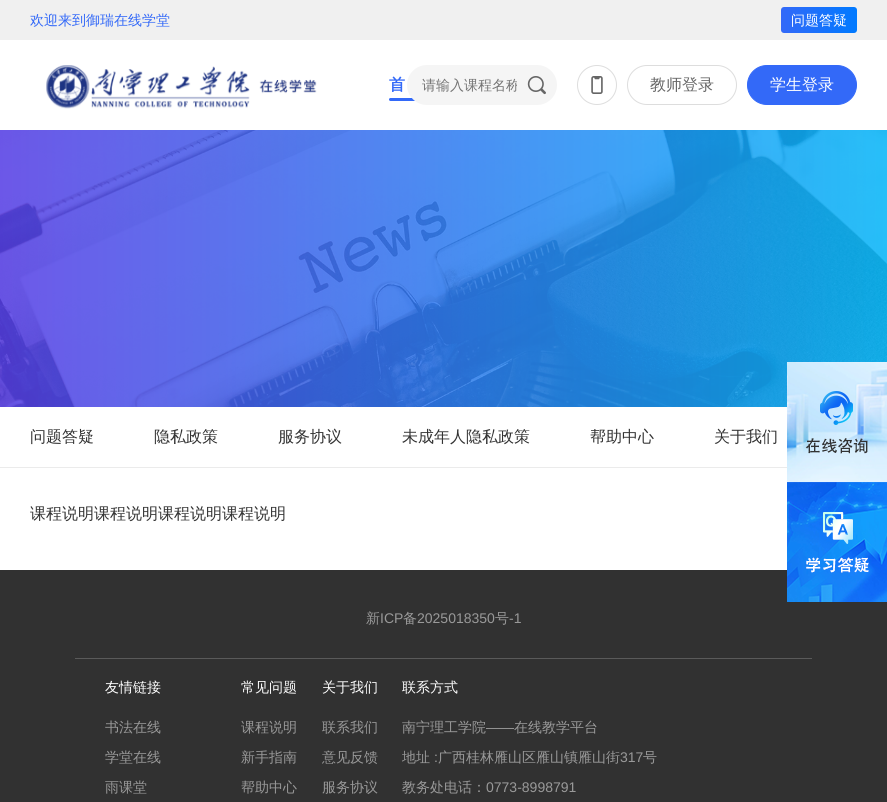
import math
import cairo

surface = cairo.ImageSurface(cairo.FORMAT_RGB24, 887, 802)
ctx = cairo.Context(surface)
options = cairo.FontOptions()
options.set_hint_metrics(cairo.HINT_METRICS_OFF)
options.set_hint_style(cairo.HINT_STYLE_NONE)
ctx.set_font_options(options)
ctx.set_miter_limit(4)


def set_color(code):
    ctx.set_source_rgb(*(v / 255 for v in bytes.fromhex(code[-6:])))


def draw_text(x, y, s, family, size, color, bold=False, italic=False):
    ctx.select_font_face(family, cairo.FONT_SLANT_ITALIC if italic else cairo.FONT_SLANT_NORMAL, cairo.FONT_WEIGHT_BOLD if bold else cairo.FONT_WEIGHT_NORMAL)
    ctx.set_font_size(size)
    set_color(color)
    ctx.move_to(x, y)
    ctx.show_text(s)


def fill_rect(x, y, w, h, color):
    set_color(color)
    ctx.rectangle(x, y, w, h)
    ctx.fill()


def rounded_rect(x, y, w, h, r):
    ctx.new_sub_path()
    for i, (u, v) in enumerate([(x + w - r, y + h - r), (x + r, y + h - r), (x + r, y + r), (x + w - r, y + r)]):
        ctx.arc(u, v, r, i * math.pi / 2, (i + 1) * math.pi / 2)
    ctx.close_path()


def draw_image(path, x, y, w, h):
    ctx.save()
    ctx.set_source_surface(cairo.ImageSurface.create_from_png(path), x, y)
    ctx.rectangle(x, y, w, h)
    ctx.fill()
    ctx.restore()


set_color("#ffffff")
ctx.paint()
fill_rect(0, 0, 887, 40, "#f0f0f0")
draw_text(30, 25, "欢迎来到御瑞在线学堂", "WenQuanYi Zen Hei Medium", 14, "#3369f8")
gradient = cairo.LinearGradient(781, 20, 857, 20)
gradient.add_color_stop_rgba(0, 0.2, 0.412, 0.973, 1)
gradient.add_color_stop_rgba(1, 0, 0.478, 1, 1)
ctx.set_source(gradient)
rounded_rect(781, 7, 76, 26, 3)
ctx.fill()
draw_text(791, 25, "问题答疑", "WenQuanYi Zen Hei Medium", 14, "#ffffff")
draw_image("assets/img1.png", 46, 65, 271, 44)
draw_text(389, 90, "首", "WenQuanYi Zen Hei", 16, "#3369f8", bold=True)
rounded_rect(389, 98, 32, 3, 1.5)
ctx.fill()
set_color("#f5f5f5")
rounded_rect(407, 65, 150, 40, 20)
ctx.fill()
ctx.save()
ctx.rectangle(422, 77, 95, 18)
ctx.clip()
draw_text(422, 90, "请输入课程名称", "WenQuanYi Zen Hei Medium", 14, "#757575")
ctx.restore()
draw_image("assets/img2.png", 527, 76, 19, 19)
ctx.arc(597, 85, 19.5, 0, 2 * math.pi)
set_color("#dddddd")
ctx.set_line_width(1)
ctx.stroke()
draw_image("assets/img3.png", 591, 76, 12, 18)
rounded_rect(627.5, 65.5, 109, 39, 19.5)
ctx.stroke()
draw_text(650, 90, "教师登录", "WenQuanYi Zen Hei Medium", 16, "#666666")
set_color("#3369f8")
rounded_rect(747.5, 65.5, 109, 39, 19.5)
ctx.fill_preserve()
ctx.stroke()
draw_text(770, 90, "学生登录", "WenQuanYi Zen Hei Medium", 16, "#ffffff")
draw_image("assets/img4.png", 0, 130, 887, 277)
draw_text(30, 442, "问题答疑", "WenQuanYi Zen Hei Medium", 16, "#333333")
draw_text(154, 442, "隐私政策", "WenQuanYi Zen Hei Medium", 16, "#333333")
draw_text(278, 442, "服务协议", "WenQuanYi Zen Hei Medium", 16, "#333333")
draw_text(402, 442, "未成年人隐私政策", "WenQuanYi Zen Hei Medium", 16, "#333333")
draw_text(590, 442, "帮助中心", "WenQuanYi Zen Hei Medium", 16, "#333333")
draw_text(714, 442, "关于我们", "WenQuanYi Zen Hei Medium", 16, "#333333")
fill_rect(0, 467, 787, 1, "#ebebeb")
draw_text(30, 519, "课程说明课程说明课程说明课程说明", "WenQuanYi Zen Hei Medium", 16, "#333333")
fill_rect(0, 570, 887, 232, "#313131")
draw_image("assets/img5.png", 787, 362, 100, 240)
fill_rect(75, 658, 737, 1, "#5a5a5a")
draw_text(366, 623, "新", "WenQuanYi Zen Hei Medium", 14, "#999999")
draw_text(380, 623, "ICP", "Liberation Sans", 14, "#999999")
draw_text(403, 623, "备", "WenQuanYi Zen Hei Medium", 14, "#999999")
draw_text(417, 623, "2025018350", "Liberation Sans", 14, "#999999")
draw_text(495, 623, "号", "WenQuanYi Zen Hei Medium", 14, "#999999")
draw_text(509, 623, "-1", "Liberation Sans", 14, "#999999")
draw_text(105, 692, "友情链接", "WenQuanYi Zen Hei Medium", 14, "#ffffff")
draw_text(105, 732, "书法在线", "WenQuanYi Zen Hei Medium", 14, "#999999")
draw_text(105, 762, "学堂在线", "WenQuanYi Zen Hei Medium", 14, "#999999")
draw_text(105, 792, "雨课堂", "WenQuanYi Zen Hei Medium", 14, "#999999")
draw_text(241, 692, "常见问题", "WenQuanYi Zen Hei Medium", 14, "#ffffff")
draw_text(241, 732, "课程说明", "WenQuanYi Zen Hei Medium", 14, "#999999")
draw_text(241, 762, "新手指南", "WenQuanYi Zen Hei Medium", 14, "#999999")
draw_text(241, 792, "帮助中心", "WenQuanYi Zen Hei Medium", 14, "#999999")
draw_text(322, 692, "关于我们", "WenQuanYi Zen Hei Medium", 14, "#ffffff")
draw_text(322, 732, "联系我们", "WenQuanYi Zen Hei Medium", 14, "#999999")
draw_text(322, 762, "意见反馈", "WenQuanYi Zen Hei Medium", 14, "#999999")
draw_text(322, 792, "服务协议", "WenQuanYi Zen Hei Medium", 14, "#999999")
draw_text(402, 692, "联系方式", "WenQuanYi Zen Hei Medium", 14, "#ffffff")
draw_text(402, 732, "南宁理工学院", "WenQuanYi Zen Hei Medium", 14, "#999999")
draw_text(486, 732, "——", "Liberation Sans", 14, "#999999")
draw_text(514, 732, "在线教学平台", "WenQuanYi Zen Hei Medium", 14, "#999999")
draw_text(402, 762, "地址", "WenQuanYi Zen Hei Medium", 14, "#999999")
draw_text(434, 762, ":", "Liberation Sans", 14, "#999999")
draw_text(438, 762, "广西桂林雁山区雁山镇雁山街", "WenQuanYi Zen Hei Medium", 14, "#999999")
draw_text(620, 762, "317", "Liberation Sans", 14, "#999999")
draw_text(643, 762, "号", "WenQuanYi Zen Hei Medium", 14, "#999999")
draw_text(402, 792, "教务处电话：", "WenQuanYi Zen Hei Medium", 14, "#999999")
draw_text(486, 792, "0773-8998791", "Liberation Sans", 14, "#999999")
surface.write_to_png("output.png")
